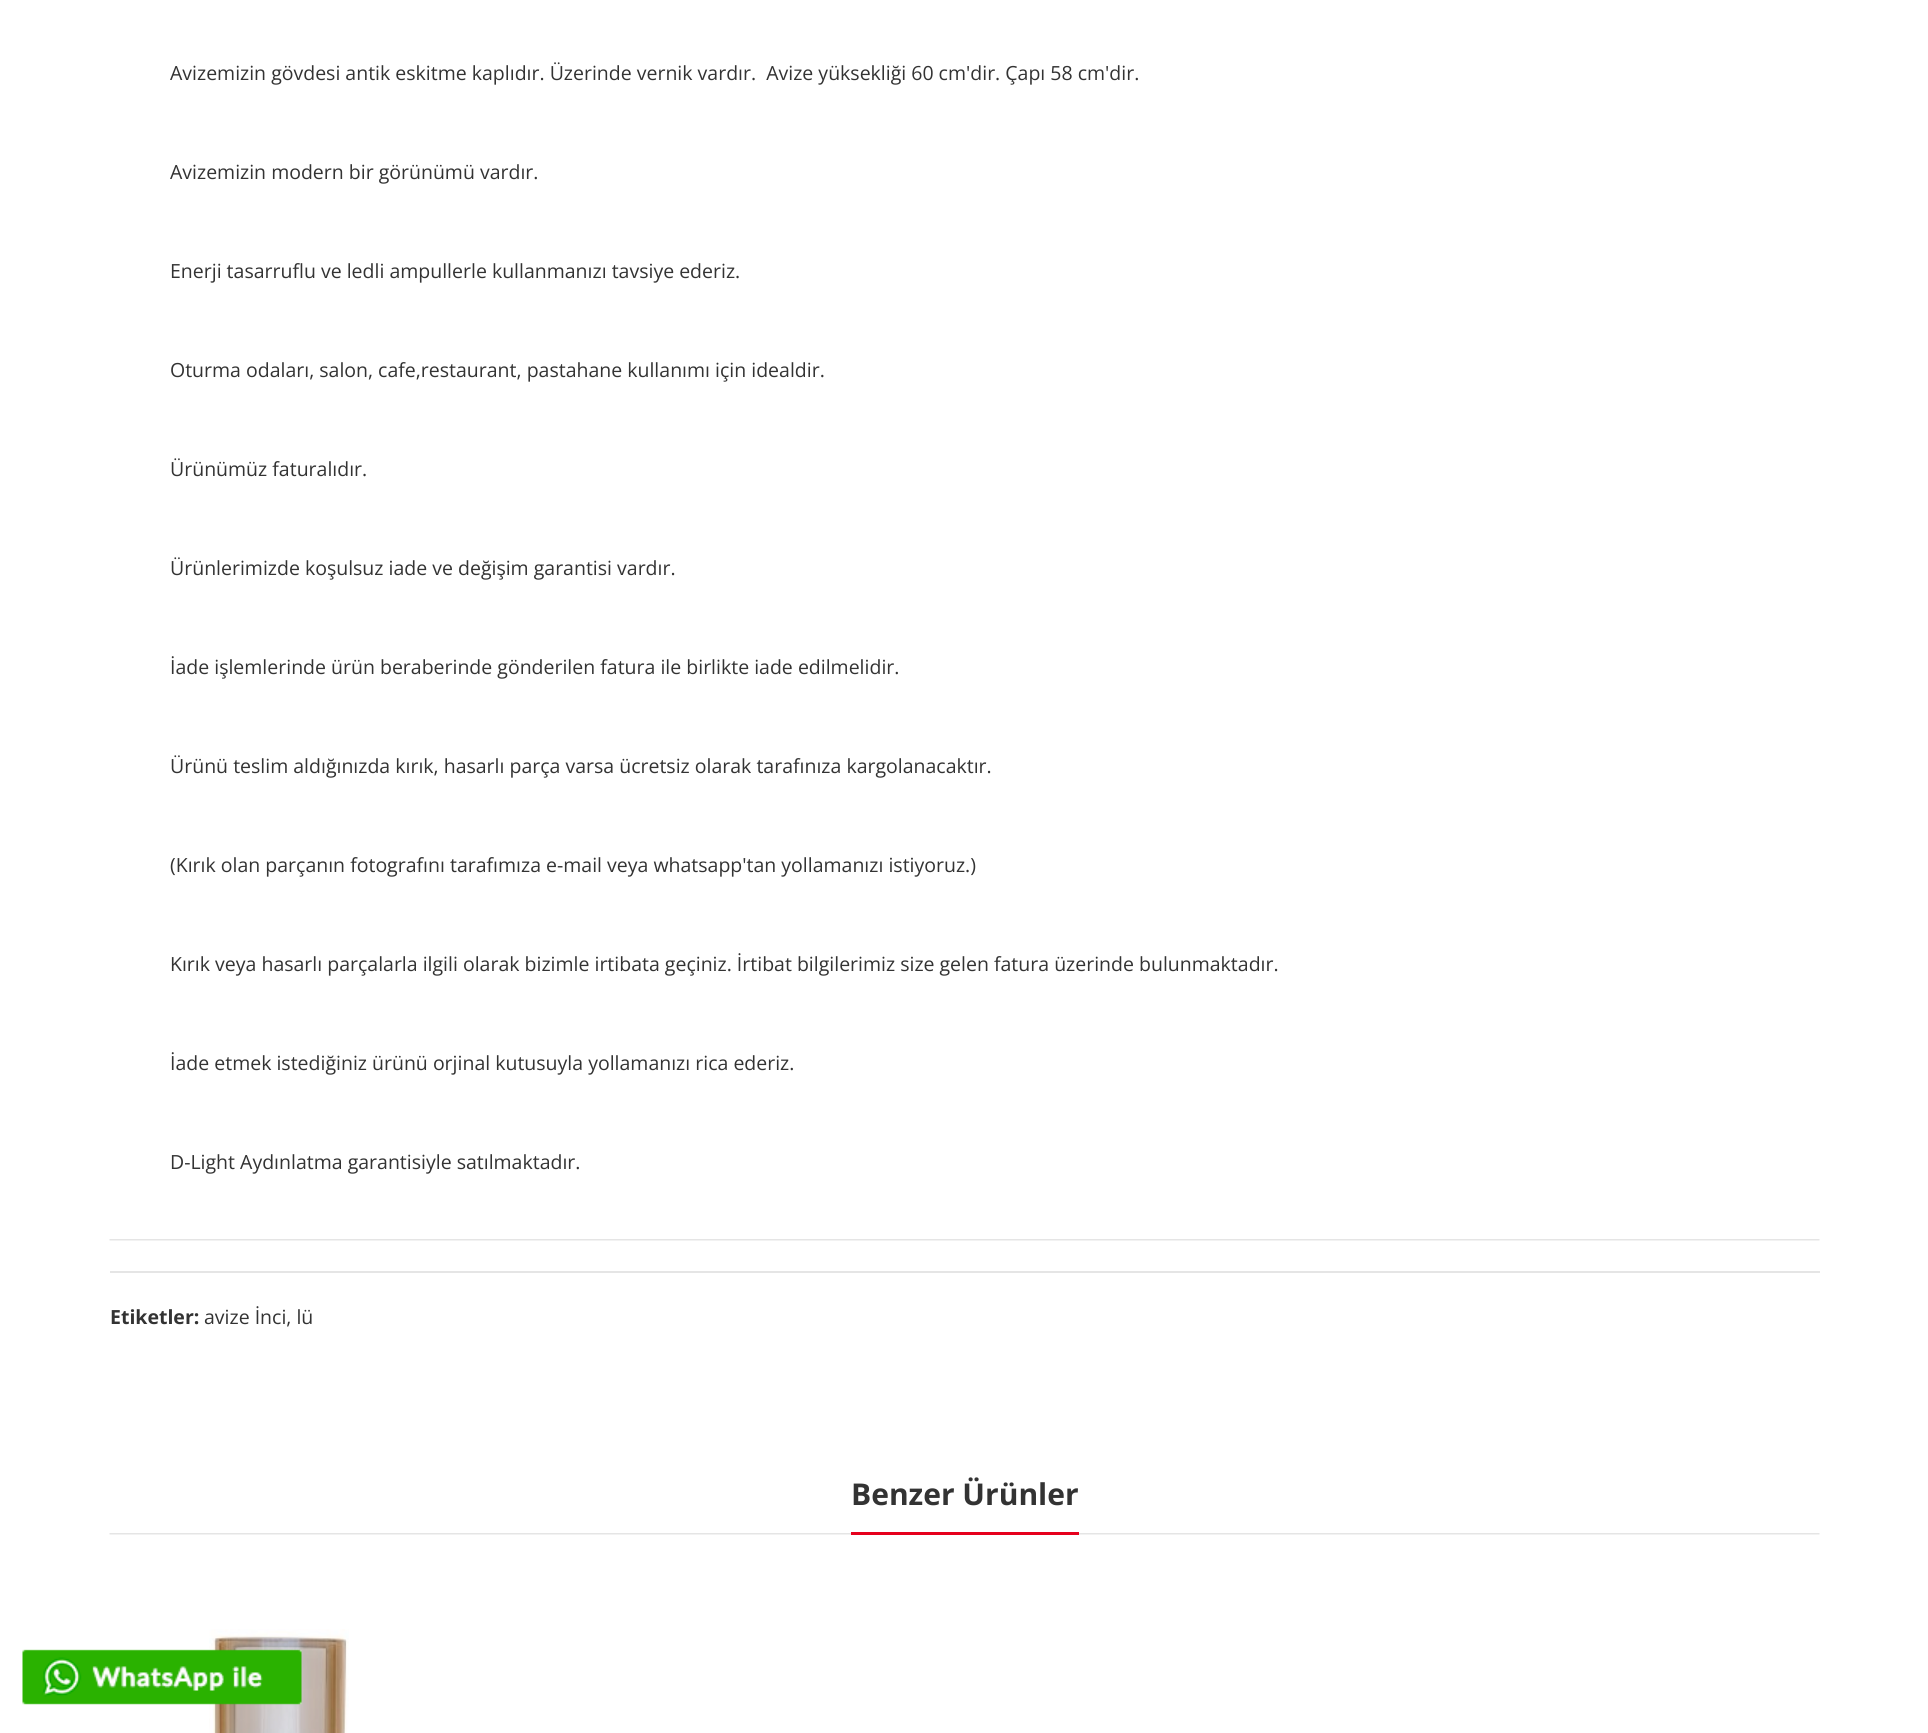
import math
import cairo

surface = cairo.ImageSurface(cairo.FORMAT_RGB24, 1928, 1733)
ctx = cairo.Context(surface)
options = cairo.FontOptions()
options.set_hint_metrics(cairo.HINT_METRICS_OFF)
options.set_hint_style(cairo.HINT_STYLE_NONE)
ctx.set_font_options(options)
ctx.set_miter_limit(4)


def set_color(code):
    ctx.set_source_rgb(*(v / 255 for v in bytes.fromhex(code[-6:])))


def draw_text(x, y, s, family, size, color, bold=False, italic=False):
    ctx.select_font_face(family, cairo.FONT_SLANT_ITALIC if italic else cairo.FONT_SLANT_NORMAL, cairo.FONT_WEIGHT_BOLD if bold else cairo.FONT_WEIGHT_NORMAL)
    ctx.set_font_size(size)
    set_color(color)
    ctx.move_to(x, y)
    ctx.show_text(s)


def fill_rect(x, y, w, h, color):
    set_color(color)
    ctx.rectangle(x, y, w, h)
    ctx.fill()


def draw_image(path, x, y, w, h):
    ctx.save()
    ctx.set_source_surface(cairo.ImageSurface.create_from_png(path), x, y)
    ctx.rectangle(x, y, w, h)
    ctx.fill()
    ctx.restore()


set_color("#ffffff")
ctx.paint()
draw_text(170, 80, "Avizemizin gövdesi antik eskitme kaplıdır. Üzerinde vernik vardır.  Avize yüksekliği 60 cm'dir. Çapı 58 cm'dir.", "Open Sans", 19.5, "#333333")
draw_text(170, 179, "Avizemizin modern bir görünümü vardır.", "Open Sans", 19.5, "#333333")
draw_text(170, 278, "Enerji tasarruflu ve ledli ampullerle kullanmanızı tavsiye ederiz.", "Open Sans", 19.5, "#333333")
draw_text(170, 377, "Oturma odaları, salon, cafe,restaurant, pastahane kullanımı için idealdir.", "Open Sans", 19.5, "#333333")
draw_text(170, 476, "Ürünümüz faturalıdır.", "Open Sans", 19.5, "#333333")
draw_text(170, 575, "Ürünlerimizde koşulsuz iade ve değişim garantisi vardır.", "Open Sans", 19.5, "#333333")
draw_text(170, 674, "İade işlemlerinde ürün beraberinde gönderilen fatura ile birlikte iade edilmelidir.", "Open Sans", 19.5, "#333333")
draw_text(170, 773, "Ürünü teslim aldığınızda kırık, hasarlı parça varsa ücretsiz olarak tarafınıza kargolanacaktır.", "Open Sans", 19.5, "#333333")
draw_text(170, 872, "(Kırık olan parçanın fotografını tarafımıza e-mail veya whatsapp'tan yollamanızı istiyoruz.)", "Open Sans", 19.5, "#333333")
draw_text(170, 971, "Kırık veya hasarlı parçalarla ilgili olarak bizimle irtibata geçiniz. İrtibat bilgilerimiz size gelen fatura üzerinde bulunmaktadır.", "Open Sans", 19.5, "#333333")
draw_text(170, 1070, "İade etmek istediğiniz ürünü orjinal kutusuyla yollamanızı rica ederiz.", "Open Sans", 19.5, "#333333")
draw_text(170, 1169, "D-Light Aydınlatma garantisiyle satılmaktadır.", "Open Sans", 19.5, "#333333")
draw_image("assets/img1.png", 109, 1239, 1711, 2)
fill_rect(110, 1271, 1710, 2, "#e5e5e5")
draw_text(110, 1324, "Etiketler:", "Open Sans", 19.5, "#333333", bold=True)
draw_text(204, 1324, "avize İnci, lü", "Open Sans", 19.5, "#333333")
draw_image("assets/img1.png", 109, 1533, 1711, 2)
fill_rect(851, 1532, 228, 3, "#e6001d")
draw_text(851, 1505, "Benzer Ürünler", "Open Sans", 30, "#333333", bold=True)
draw_image("assets/img2.png", 209, 1629, 140, 104)
draw_image("assets/img3.png", 22, 1649, 280, 56)
surface.write_to_png("output.png")
